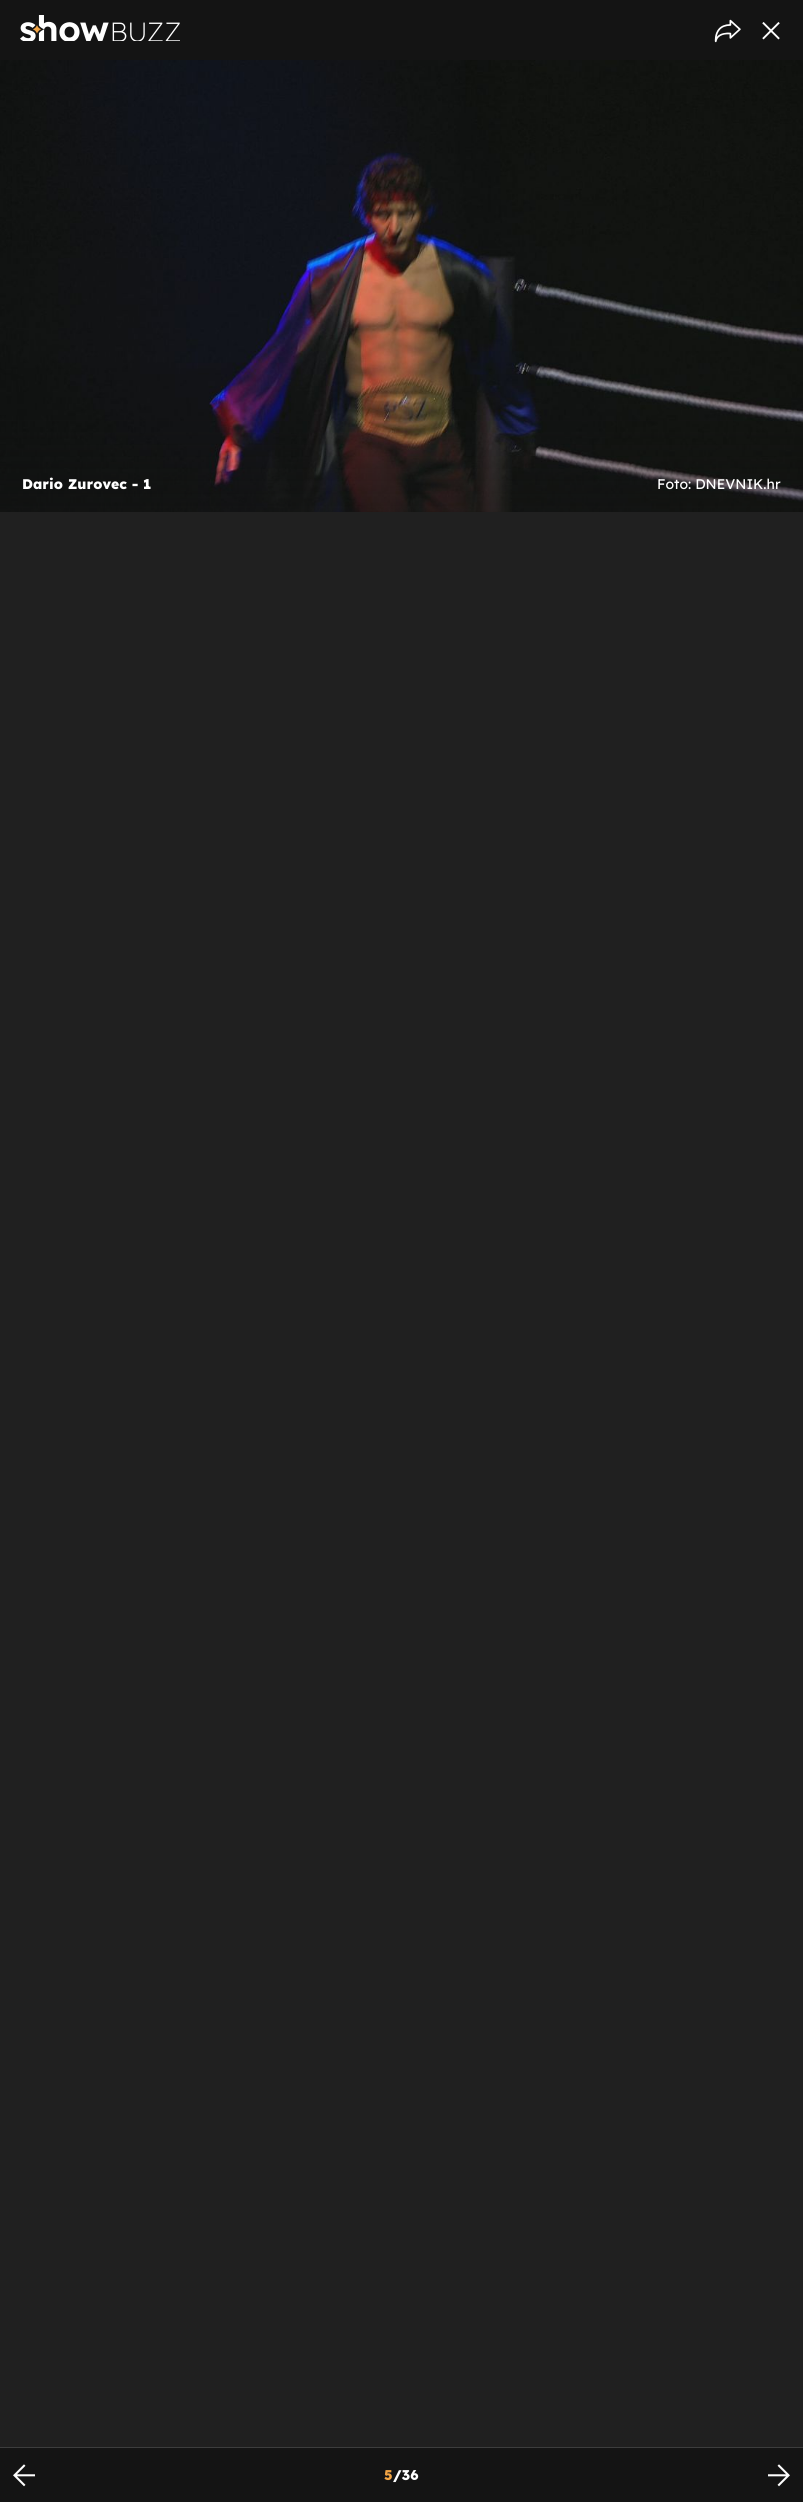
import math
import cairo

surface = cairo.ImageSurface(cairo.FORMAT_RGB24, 803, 2502)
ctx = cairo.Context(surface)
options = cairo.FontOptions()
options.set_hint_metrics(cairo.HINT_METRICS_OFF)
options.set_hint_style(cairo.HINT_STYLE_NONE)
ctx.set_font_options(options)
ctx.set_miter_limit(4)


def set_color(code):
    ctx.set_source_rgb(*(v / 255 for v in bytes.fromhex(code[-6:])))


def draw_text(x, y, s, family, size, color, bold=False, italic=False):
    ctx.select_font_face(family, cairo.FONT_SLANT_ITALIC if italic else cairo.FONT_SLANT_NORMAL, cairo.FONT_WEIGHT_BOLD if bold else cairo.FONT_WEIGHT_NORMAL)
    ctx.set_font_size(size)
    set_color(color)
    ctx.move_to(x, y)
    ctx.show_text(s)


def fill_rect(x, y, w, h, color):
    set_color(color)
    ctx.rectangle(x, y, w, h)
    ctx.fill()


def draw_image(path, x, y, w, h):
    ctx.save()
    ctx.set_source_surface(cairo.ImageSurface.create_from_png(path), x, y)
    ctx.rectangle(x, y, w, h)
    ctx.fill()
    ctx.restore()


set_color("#202020")
ctx.paint()
fill_rect(0, 0, 803, 60, "#141414")
draw_image("assets/img1.png", 20, 15, 160, 26)
draw_image("assets/img2.png", 714, 19, 27, 24)
draw_image("assets/img3.png", 762, 22, 18, 18)
draw_image("assets/img4.png", 0, 60, 803, 452)
draw_text(22, 489, "Dario Zurovec - 1", "Lexend ExtraBold", 14, "#ffffff")
draw_text(657, 489, "Foto: DNEVNIK.hr", "Lexend", 14, "#ffffff")
fill_rect(0, 2448, 803, 54, "#141414")
fill_rect(0, 2447, 803, 1, "#3d3d3d")
draw_image("assets/img5.png", 13, 2464, 22, 23)
draw_text(384, 2480, "5", "Lexend ExtraBold", 14, "#f2a444")
draw_text(393, 2480, "/36", "Lexend ExtraBold", 14, "#ffffff")
draw_image("assets/img6.png", 768, 2464, 22, 23)
surface.write_to_png("output.png")
